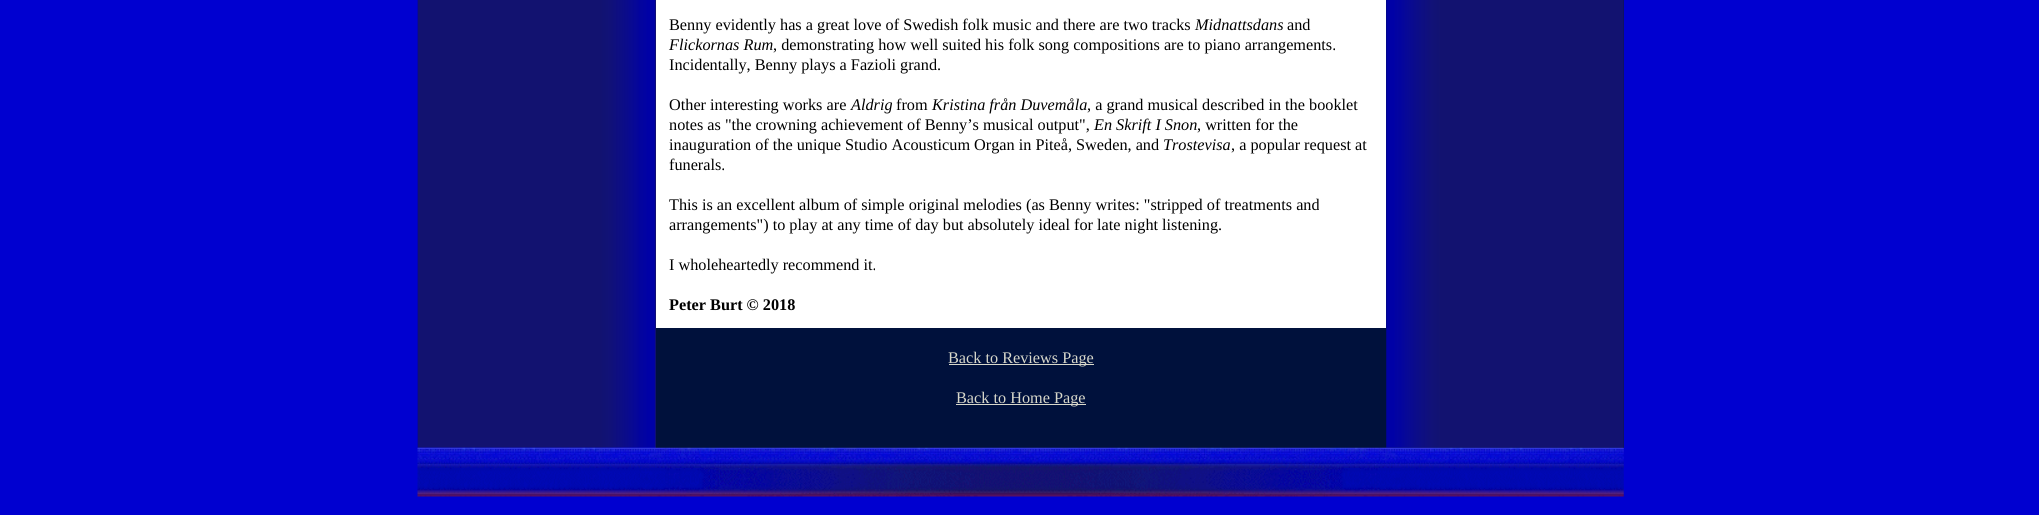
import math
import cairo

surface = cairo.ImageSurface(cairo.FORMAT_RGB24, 2039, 515)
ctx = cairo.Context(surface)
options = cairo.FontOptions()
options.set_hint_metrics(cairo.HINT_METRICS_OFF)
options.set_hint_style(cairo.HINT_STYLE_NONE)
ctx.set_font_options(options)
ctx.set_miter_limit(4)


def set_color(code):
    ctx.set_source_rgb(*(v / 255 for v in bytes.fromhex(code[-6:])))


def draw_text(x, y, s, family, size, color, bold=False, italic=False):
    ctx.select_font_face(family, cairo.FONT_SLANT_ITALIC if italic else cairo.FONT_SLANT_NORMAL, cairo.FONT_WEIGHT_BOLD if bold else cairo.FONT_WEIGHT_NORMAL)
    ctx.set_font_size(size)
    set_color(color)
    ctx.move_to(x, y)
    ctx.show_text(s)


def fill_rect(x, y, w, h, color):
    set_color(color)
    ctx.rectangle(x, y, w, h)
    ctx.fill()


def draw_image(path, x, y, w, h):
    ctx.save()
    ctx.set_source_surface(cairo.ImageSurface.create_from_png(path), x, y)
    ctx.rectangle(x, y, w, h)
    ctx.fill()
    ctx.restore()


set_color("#0000d0")
ctx.paint()
draw_image("assets/img1.png", 417, 0, 239, 448)
fill_rect(656, 0, 968, 448, "#00113c")
fill_rect(656, 0, 730, 328, "#ffffff")
draw_text(669, 30, "Benny evidently has a great love of Swedish folk music and there are two tracks", "Liberation Serif", 16.25, "#000000")
draw_text(1195, 30, "Midnattsdans", "Liberation Serif", 16.25, "#000000", italic=True)
draw_text(1287, 30, "and", "Liberation Serif", 16.25, "#000000")
draw_text(669, 50, "Flickornas Rum", "Liberation Serif", 16.25, "#000000", italic=True)
draw_text(773, 50, ", demonstrating how well suited his folk song compositions are to piano arrangements.", "Liberation Serif", 16.25, "#000000")
draw_text(669, 70, "Incidentally, Benny plays a Fazioli grand.", "Liberation Serif", 16.25, "#000000")
draw_text(669, 110, "Other interesting works are", "Liberation Serif", 16.25, "#000000")
draw_text(851, 110, "Aldrig", "Liberation Serif", 16.25, "#000000", italic=True)
draw_text(896, 110, "from", "Liberation Serif", 16.25, "#000000")
draw_text(932, 110, "Kristina från Duvemåla", "Liberation Serif", 16.25, "#000000", italic=True)
draw_text(1087, 110, ", a grand musical described in the booklet", "Liberation Serif", 16.25, "#000000")
draw_text(669, 130, "notes as \"the crowning achievement of Benny’s musical output\",", "Liberation Serif", 16.25, "#000000")
draw_text(1094, 130, "En Skrift I Snon", "Liberation Serif", 16.25, "#000000", italic=True)
draw_text(1197, 130, ", written for the", "Liberation Serif", 16.25, "#000000")
draw_text(669, 150, "inauguration of the unique Studio Acousticum Organ in Piteå, Sweden, and", "Liberation Serif", 16.25, "#000000")
draw_text(1163, 150, "Trostevisa", "Liberation Serif", 16.25, "#000000", italic=True)
draw_text(1231, 150, ", a popular request at", "Liberation Serif", 16.25, "#000000")
draw_text(669, 170, "funerals.", "Liberation Serif", 16.25, "#000000")
draw_text(669, 210, "This is an excellent album of simple original melodies (as Benny writes: \"stripped of treatments and", "Liberation Serif", 16.25, "#000000")
draw_text(669, 230, "arrangements\") to play at any time of day but absolutely ideal for late night listening.", "Liberation Serif", 16.25, "#000000")
draw_text(669, 270, "I wholeheartedly recommend it.", "Liberation Serif", 16.25, "#000000")
draw_text(669, 310, "Peter Burt © 2018", "Liberation Serif", 16.25, "#000000", bold=True)
fill_rect(949, 364, 145, 1, "#d8d8cb")
draw_text(948, 363, "Back to Reviews Page", "Liberation Serif", 16.25, "#d8d8cb")
fill_rect(956, 404, 130, 1, "#d8d8cb")
draw_text(956, 403, "Back to Home Page", "Liberation Serif", 16.25, "#d8d8cb")
draw_image("assets/img2.png", 1386, 0, 238, 448)
draw_image("assets/img3.png", 417, 447, 1207, 50)
surface.write_to_png("output.png")
